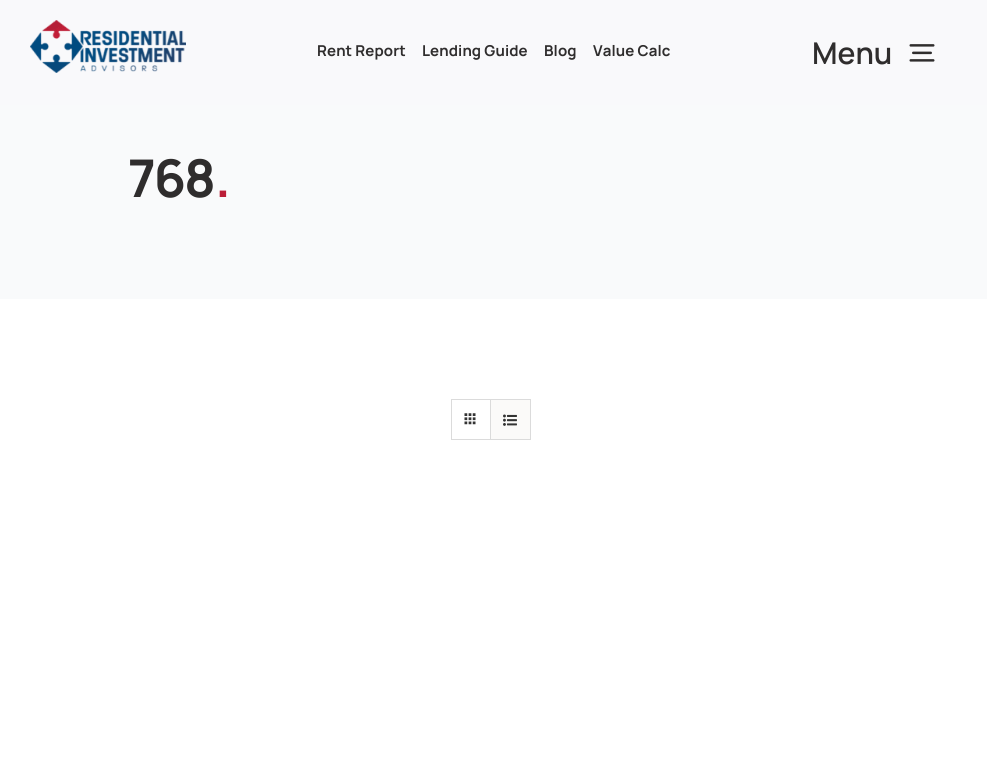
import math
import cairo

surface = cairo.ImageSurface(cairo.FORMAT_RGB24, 987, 760)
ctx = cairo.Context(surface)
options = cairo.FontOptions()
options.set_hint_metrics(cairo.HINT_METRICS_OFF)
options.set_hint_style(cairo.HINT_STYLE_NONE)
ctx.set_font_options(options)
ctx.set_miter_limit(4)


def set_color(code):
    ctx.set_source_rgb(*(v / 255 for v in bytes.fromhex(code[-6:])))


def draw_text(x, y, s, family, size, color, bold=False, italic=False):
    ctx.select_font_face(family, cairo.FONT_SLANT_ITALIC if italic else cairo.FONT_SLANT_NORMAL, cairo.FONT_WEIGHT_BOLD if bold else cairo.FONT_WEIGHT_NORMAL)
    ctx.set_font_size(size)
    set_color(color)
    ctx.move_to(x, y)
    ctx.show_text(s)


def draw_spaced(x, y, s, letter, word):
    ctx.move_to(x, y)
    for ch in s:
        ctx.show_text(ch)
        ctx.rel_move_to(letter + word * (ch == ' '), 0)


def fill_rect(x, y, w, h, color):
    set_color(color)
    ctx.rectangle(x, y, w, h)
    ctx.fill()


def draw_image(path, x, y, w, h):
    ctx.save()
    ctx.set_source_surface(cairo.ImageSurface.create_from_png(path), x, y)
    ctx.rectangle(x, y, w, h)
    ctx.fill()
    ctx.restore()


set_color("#ffffff")
ctx.paint()
fill_rect(0, 0, 987, 105, "#f9f9fb")
draw_image("assets/img1.png", 30, 20, 156, 53)
ctx.select_font_face("Manrope", cairo.FONT_SLANT_NORMAL, cairo.FONT_WEIGHT_BOLD)
ctx.set_font_size(15)
set_color("#2f2d2d")
draw_spaced(317, 56, "Rent Report", 0.1, 0)
draw_spaced(422, 56, "Lending Guide", 0.1, 0)
draw_spaced(544, 56, "Blog", 0.1, 0)
draw_spaced(593, 56, "Value Calc", 0.1, 0)
draw_text(812, 64, "Menu", "Manrope SemiBold", 30, "#2f2d2d")
draw_image("assets/img2.png", 909, 44, 26, 18)
fill_rect(0, 105, 987, 194, "#f9fafb")
ctx.select_font_face("Manrope", cairo.FONT_SLANT_NORMAL, cairo.FONT_WEIGHT_BOLD)
ctx.set_font_size(52)
set_color("#2f2d2d")
draw_spaced(128, 197, "768", -2, 0)
set_color("#bb1e37")
draw_spaced(215, 197, ".", -2, 0)
ctx.rectangle(451.5, 399.5, 79, 40)
set_color("#dbdbdb")
ctx.set_line_width(1)
ctx.stroke()
fill_rect(490, 400, 1, 39, "#dbdbdb")
draw_image("assets/img3.png", 464, 413, 12, 12)
fill_rect(491, 400, 39, 39, "#fbfaf9")
draw_image("assets/img4.png", 503, 414, 14, 12)
surface.write_to_png("output.png")
